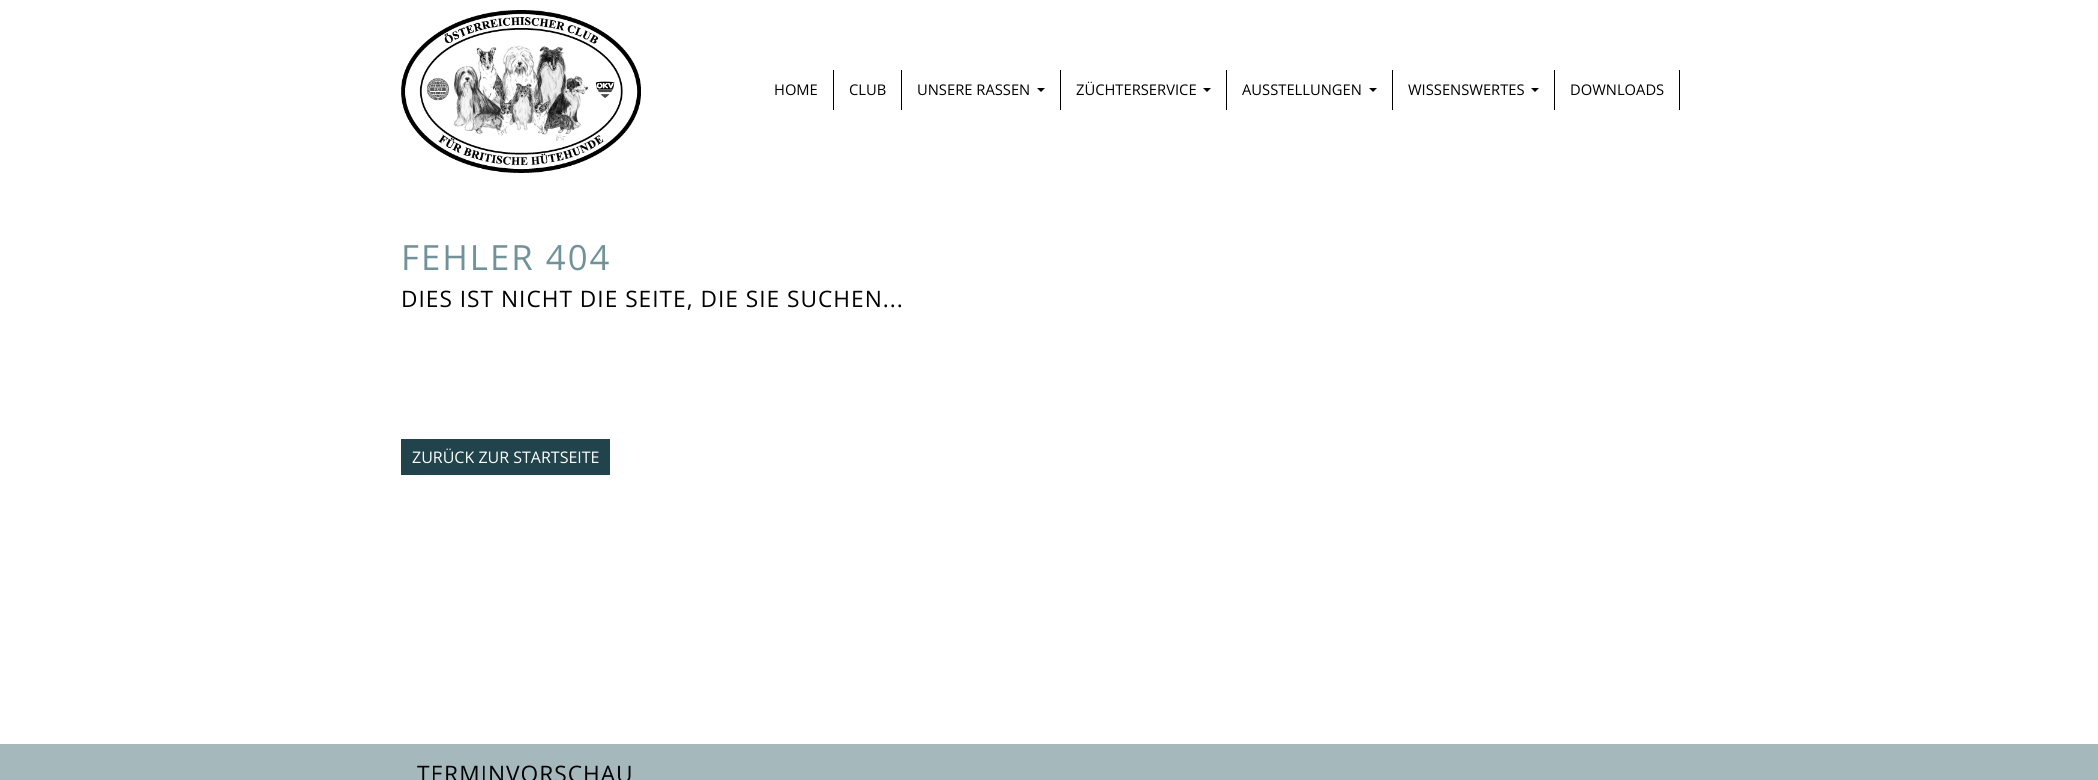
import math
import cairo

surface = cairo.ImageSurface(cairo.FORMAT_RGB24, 2098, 780)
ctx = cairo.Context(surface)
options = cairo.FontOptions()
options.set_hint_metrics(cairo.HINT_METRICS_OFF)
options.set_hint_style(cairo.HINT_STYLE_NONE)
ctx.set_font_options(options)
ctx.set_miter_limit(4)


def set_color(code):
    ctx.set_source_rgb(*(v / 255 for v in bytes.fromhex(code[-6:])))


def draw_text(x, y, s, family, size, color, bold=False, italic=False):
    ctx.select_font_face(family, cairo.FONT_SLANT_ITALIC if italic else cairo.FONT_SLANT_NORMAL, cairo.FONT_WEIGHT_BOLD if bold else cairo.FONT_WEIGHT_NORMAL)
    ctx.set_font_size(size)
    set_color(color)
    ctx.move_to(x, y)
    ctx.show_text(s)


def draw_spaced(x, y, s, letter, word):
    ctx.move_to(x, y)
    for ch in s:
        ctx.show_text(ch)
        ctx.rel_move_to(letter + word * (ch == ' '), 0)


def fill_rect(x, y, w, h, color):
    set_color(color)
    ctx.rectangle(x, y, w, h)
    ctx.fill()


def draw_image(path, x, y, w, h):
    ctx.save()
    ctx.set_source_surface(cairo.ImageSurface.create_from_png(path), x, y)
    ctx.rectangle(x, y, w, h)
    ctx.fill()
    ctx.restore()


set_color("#ffffff")
ctx.paint()
draw_image("assets/img1.png", 401, 10, 240, 163)
fill_rect(833, 70, 1, 40, "#000000")
draw_text(774, 95, "HOME", "Open Sans", 14.75, "#000000")
fill_rect(901, 70, 1, 40, "#000000")
draw_text(849, 95, "CLUB", "Open Sans", 14.75, "#000000")
fill_rect(1060, 70, 1, 40, "#000000")
draw_text(917, 95, "UNSERE RASSEN", "Open Sans", 14.75, "#000000")
ctx.new_path()
ctx.move_to(1037, 88)
ctx.line_to(1045, 88)
ctx.line_to(1041, 92)
ctx.close_path()
ctx.fill()
fill_rect(1226, 70, 1, 40, "#000000")
draw_text(1076, 95, "ZÜCHTERSERVICE", "Open Sans", 14.75, "#000000")
ctx.new_path()
ctx.move_to(1203, 88)
ctx.line_to(1211, 88)
ctx.line_to(1207, 92)
ctx.close_path()
ctx.fill()
fill_rect(1392, 70, 1, 40, "#000000")
draw_text(1242, 95, "AUSSTELLUNGEN", "Open Sans", 14.75, "#000000")
ctx.new_path()
ctx.move_to(1369, 88)
ctx.line_to(1377, 88)
ctx.line_to(1373, 92)
ctx.close_path()
ctx.fill()
fill_rect(1554, 70, 1, 40, "#000000")
draw_text(1408, 95, "WISSENSWERTES", "Open Sans", 14.75, "#000000")
ctx.new_path()
ctx.move_to(1531, 88)
ctx.line_to(1539, 88)
ctx.line_to(1535, 92)
ctx.close_path()
ctx.fill()
fill_rect(1679, 70, 1, 40, "#000000")
draw_text(1570, 95, "DOWNLOADS", "Open Sans", 14.75, "#000000")
ctx.set_font_size(34.75)
set_color("#72929a")
draw_spaced(401, 270, "FEHLER 404", 2, 0)
ctx.set_font_size(22.7)
set_color("#000000")
draw_spaced(401, 307, "DIES IST NICHT DIE SEITE, DIE SIE SUCHEN...", 1, 0)
fill_rect(401, 439, 209, 36, "#21434b")
draw_text(412, 463, "ZURÜCK ZUR STARTSEITE", "Open Sans", 16, "#ffffff")
fill_rect(0, 744, 2098, 36, "#a5b9bd")
ctx.set_font_size(22.7)
set_color("#000000")
draw_spaced(417, 782, "TERMINVORSCHAU", 1, 0)
surface.write_to_png("output.png")
